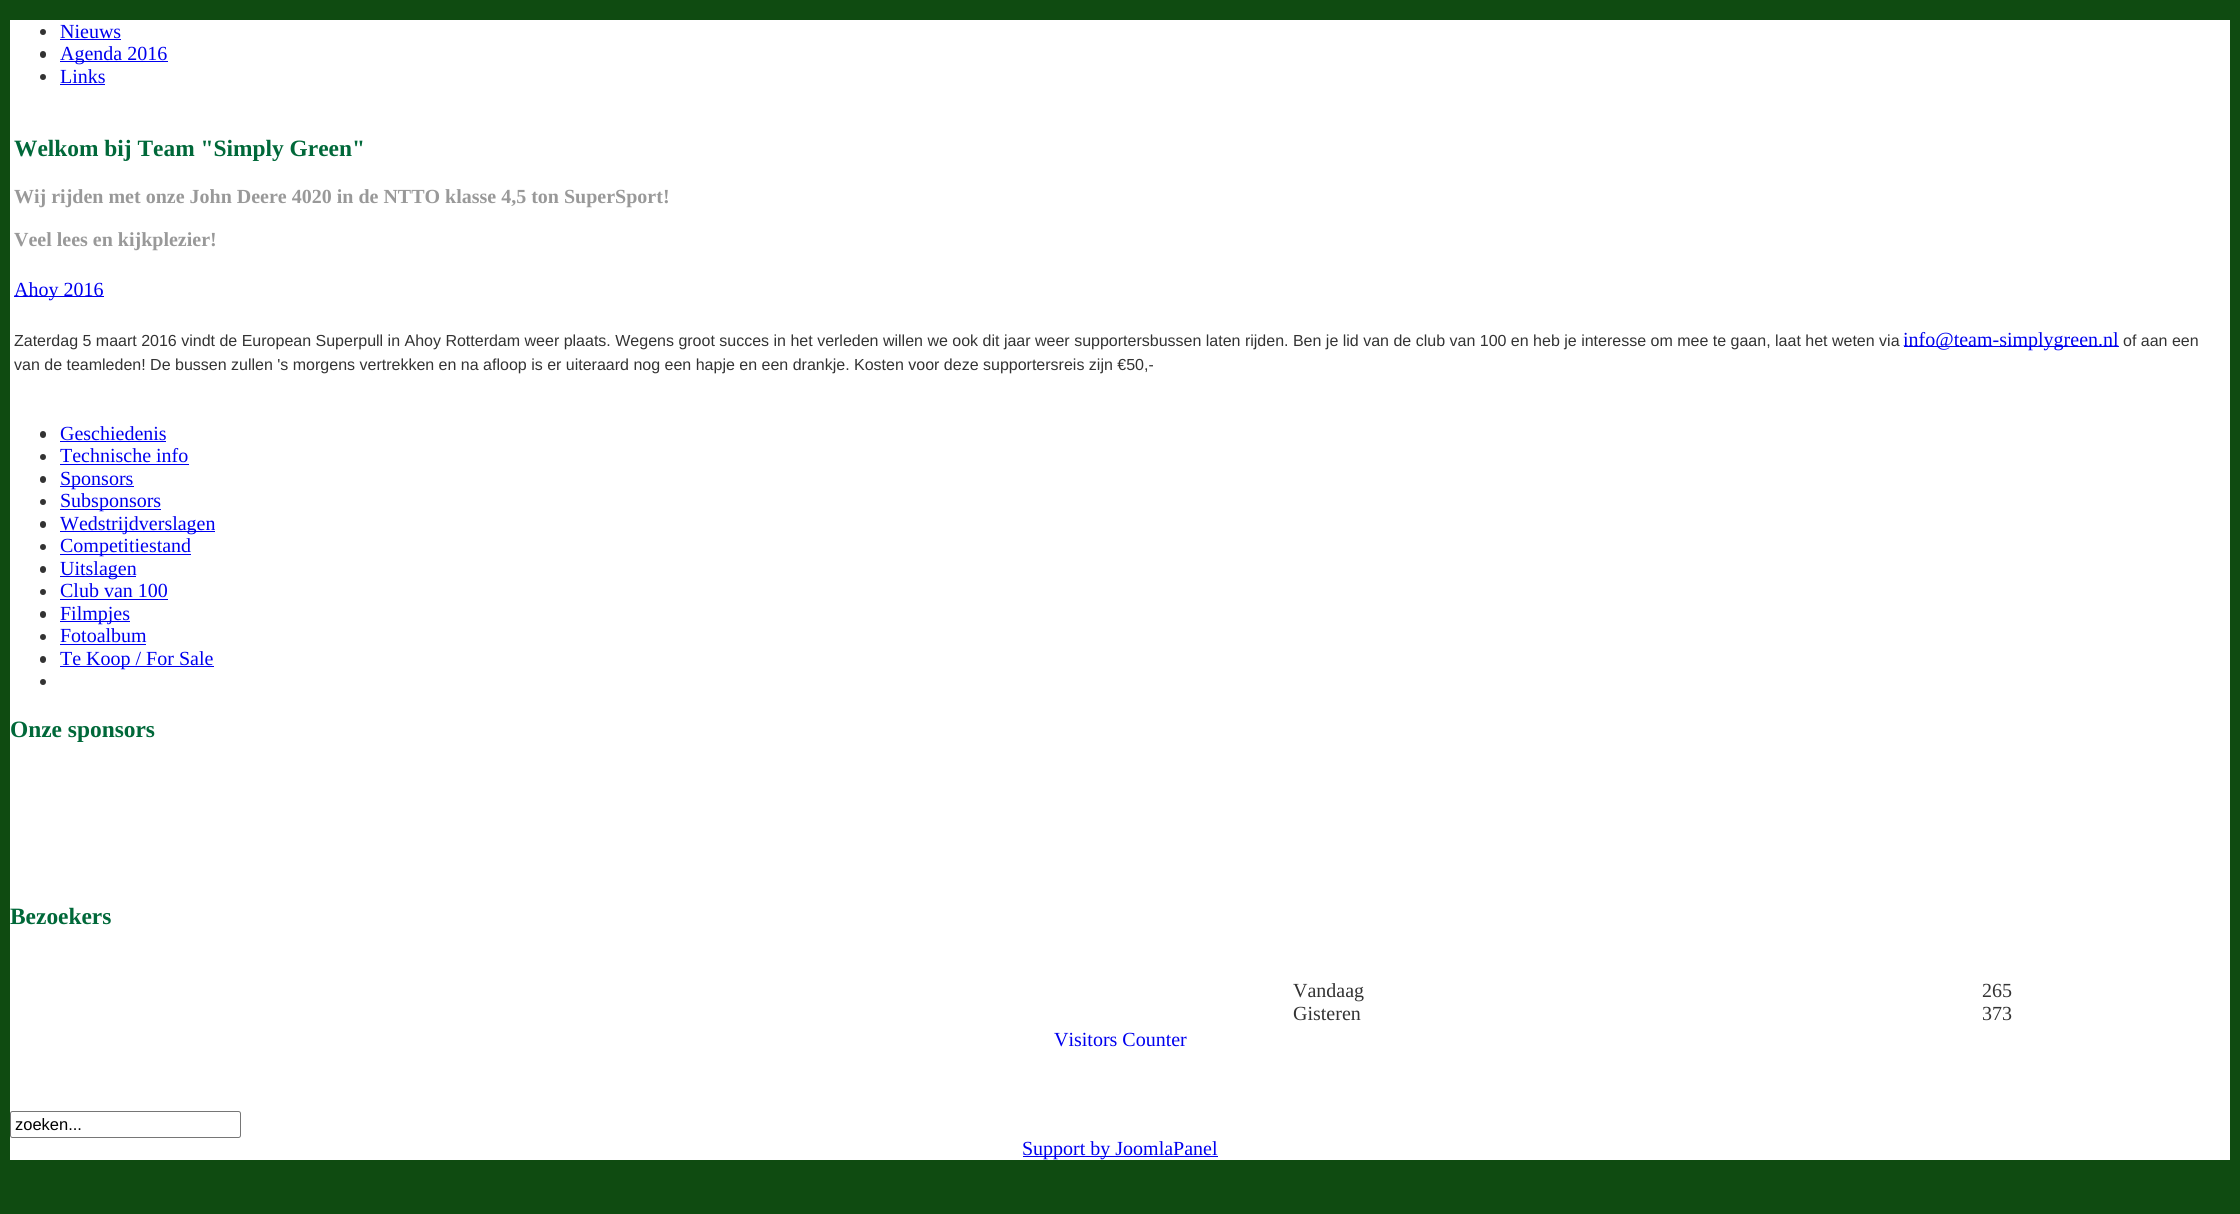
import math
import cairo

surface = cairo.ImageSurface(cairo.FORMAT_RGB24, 2240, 1214)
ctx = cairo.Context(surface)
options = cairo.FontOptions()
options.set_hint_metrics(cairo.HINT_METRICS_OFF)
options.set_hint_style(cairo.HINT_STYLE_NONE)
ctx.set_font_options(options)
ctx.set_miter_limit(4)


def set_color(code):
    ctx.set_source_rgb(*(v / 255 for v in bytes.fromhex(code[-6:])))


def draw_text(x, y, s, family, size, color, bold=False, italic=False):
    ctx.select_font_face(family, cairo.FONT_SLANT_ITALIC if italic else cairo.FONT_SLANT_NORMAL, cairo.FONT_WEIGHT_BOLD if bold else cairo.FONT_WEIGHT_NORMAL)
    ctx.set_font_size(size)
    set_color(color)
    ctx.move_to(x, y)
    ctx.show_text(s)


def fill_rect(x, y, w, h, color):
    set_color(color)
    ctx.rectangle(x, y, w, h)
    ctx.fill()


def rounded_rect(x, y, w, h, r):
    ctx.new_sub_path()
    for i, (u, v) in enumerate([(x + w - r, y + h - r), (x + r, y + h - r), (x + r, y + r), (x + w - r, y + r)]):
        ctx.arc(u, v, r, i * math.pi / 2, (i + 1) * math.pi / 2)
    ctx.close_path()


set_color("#0f4b11")
ctx.paint()
fill_rect(10, 20, 2220, 1140, "#ffffff")
set_color("#333333")
ctx.arc(43, 32, 3, 0, 2 * math.pi)
ctx.fill()
draw_text(60, 38, "Nieuws", "Liberation Serif", 20, "#0000ee")
fill_rect(60, 39, 61, 1, "#0000ee")
set_color("#333333")
rounded_rect(40, 51, 6, 7, 3)
ctx.fill()
fill_rect(60, 61, 108, 1, "#0000ee")
draw_text(60, 60, "Agenda 2016", "Liberation Serif", 20, "#0000ee")
set_color("#333333")
ctx.new_path()
ctx.arc(43, 77, 3, 0, 2 * math.pi)
ctx.fill()
draw_text(60, 83, "Links", "Liberation Serif", 20, "#0000ee")
fill_rect(60, 84, 45, 1, "#0000ee")
draw_text(14, 156, "Welkom bij Team \"Simply Green\"", "Liberation Serif", 23.4, "#006839", bold=True)
draw_text(14, 203, "Wij rijden met onze John Deere 4020 in de NTTO klasse 4,5 ton SuperSport!", "Liberation Serif", 20, "#999999", bold=True)
draw_text(14, 246, "Veel lees en kijkplezier!", "Liberation Serif", 20, "#999999", bold=True)
fill_rect(14, 296, 90, 1, "#0000ee")
draw_text(14, 296, "Ahoy 2016", "Liberation Serif", 20, "#0000ee")
draw_text(14, 346, "Zaterdag 5 maart 2016 vindt de European Superpull in Ahoy Rotterdam weer plaats. Wegens groot succes in het verleden willen we ook dit jaar weer supportersbussen laten rijden. Ben je lid van de club van 100 en heb je interesse om mee te gaan, laat het weten via", "Liberation Sans", 16, "#333333")
fill_rect(1904, 346, 215, 1, "#0000ee")
draw_text(1903, 346, "info@team-simplygreen.nl", "Liberation Serif", 20, "#0000ee")
draw_text(2123, 346, "of aan een", "Liberation Sans", 16, "#333333")
draw_text(14, 370, "van de teamleden! De bussen zullen 's morgens vertrekken en na afloop is er uiteraard nog een hapje en een drankje. Kosten voor deze supportersreis zijn €50,-", "Liberation Sans", 16, "#333333")
rounded_rect(40, 431, 6, 7, 3)
ctx.fill()
draw_text(60, 440, "Geschiedenis", "Liberation Serif", 20, "#0000ee")
fill_rect(60, 441, 106, 1, "#0000ee")
set_color("#333333")
ctx.new_path()
ctx.arc(43, 457, 3, 0, 2 * math.pi)
ctx.fill()
draw_text(60, 462, "Technische info", "Liberation Serif", 20, "#0000ee")
fill_rect(60, 464, 129, 1, "#0000ee")
set_color("#333333")
rounded_rect(40, 476, 6, 7, 3)
ctx.fill()
fill_rect(60, 486, 74, 1, "#0000ee")
draw_text(60, 485, "Sponsors", "Liberation Serif", 20, "#0000ee")
set_color("#333333")
ctx.new_path()
ctx.arc(43, 502, 3, 0, 2 * math.pi)
ctx.fill()
fill_rect(60, 509, 101, 1, "#0000ee")
draw_text(60, 507, "Subsponsors", "Liberation Serif", 20, "#0000ee")
set_color("#333333")
rounded_rect(40, 521, 6, 7, 3)
ctx.fill()
fill_rect(60, 531, 155, 1, "#0000ee")
draw_text(60, 530, "Wedstrijdverslagen", "Liberation Serif", 20, "#0000ee")
set_color("#333333")
ctx.new_path()
ctx.arc(43, 547, 3, 0, 2 * math.pi)
ctx.fill()
fill_rect(60, 554, 131, 1, "#0000ee")
draw_text(60, 552, "Competitiestand", "Liberation Serif", 20, "#0000ee")
set_color("#333333")
rounded_rect(40, 566, 6, 7, 3)
ctx.fill()
fill_rect(60, 576, 76, 1, "#0000ee")
draw_text(60, 575, "Uitslagen", "Liberation Serif", 20, "#0000ee")
set_color("#333333")
ctx.new_path()
ctx.arc(43, 592, 3, 0, 2 * math.pi)
ctx.fill()
draw_text(60, 597, "Club van 100", "Liberation Serif", 20, "#0000ee")
fill_rect(60, 599, 108, 1, "#0000ee")
set_color("#333333")
rounded_rect(40, 611, 6, 7, 3)
ctx.fill()
fill_rect(60, 621, 70, 1, "#0000ee")
draw_text(60, 620, "Filmpjes", "Liberation Serif", 20, "#0000ee")
set_color("#333333")
ctx.new_path()
ctx.arc(43, 637, 3, 0, 2 * math.pi)
ctx.fill()
draw_text(60, 642, "Fotoalbum", "Liberation Serif", 20, "#0000ee")
fill_rect(60, 644, 86, 1, "#0000ee")
set_color("#333333")
rounded_rect(40, 656, 6, 7, 3)
ctx.fill()
fill_rect(60, 666, 154, 1, "#0000ee")
draw_text(60, 665, "Te Koop / For Sale", "Liberation Serif", 20, "#0000ee")
set_color("#333333")
ctx.new_path()
ctx.arc(43, 682, 3, 0, 2 * math.pi)
ctx.fill()
draw_text(10, 737, "Onze sponsors", "Liberation Serif", 23.4, "#006839", bold=True)
draw_text(10, 924, "Bezoekers", "Liberation Serif", 23.4, "#006839", bold=True)
draw_text(1293, 997, "Vandaag", "Liberation Serif", 20, "#333333")
draw_text(1982, 997, "265", "Liberation Serif", 20, "#333333")
draw_text(1293, 1020, "Gisteren", "Liberation Serif", 20, "#333333")
draw_text(1982, 1020, "373", "Liberation Serif", 20, "#333333")
draw_text(1054, 1046, "Visitors Counter", "Liberation Serif", 20, "#0000ee")
rounded_rect(10.5, 1111.5, 230, 26, 2)
set_color("#767676")
ctx.set_line_width(1)
ctx.stroke()
draw_text(15, 1130, "zoeken...", "Liberation Sans", 16.5, "#000000")
fill_rect(1023, 1156, 195, 1, "#0000ee")
draw_text(1022, 1155, "Support by JoomlaPanel", "Liberation Serif", 20, "#0000ee")
surface.write_to_png("output.png")
